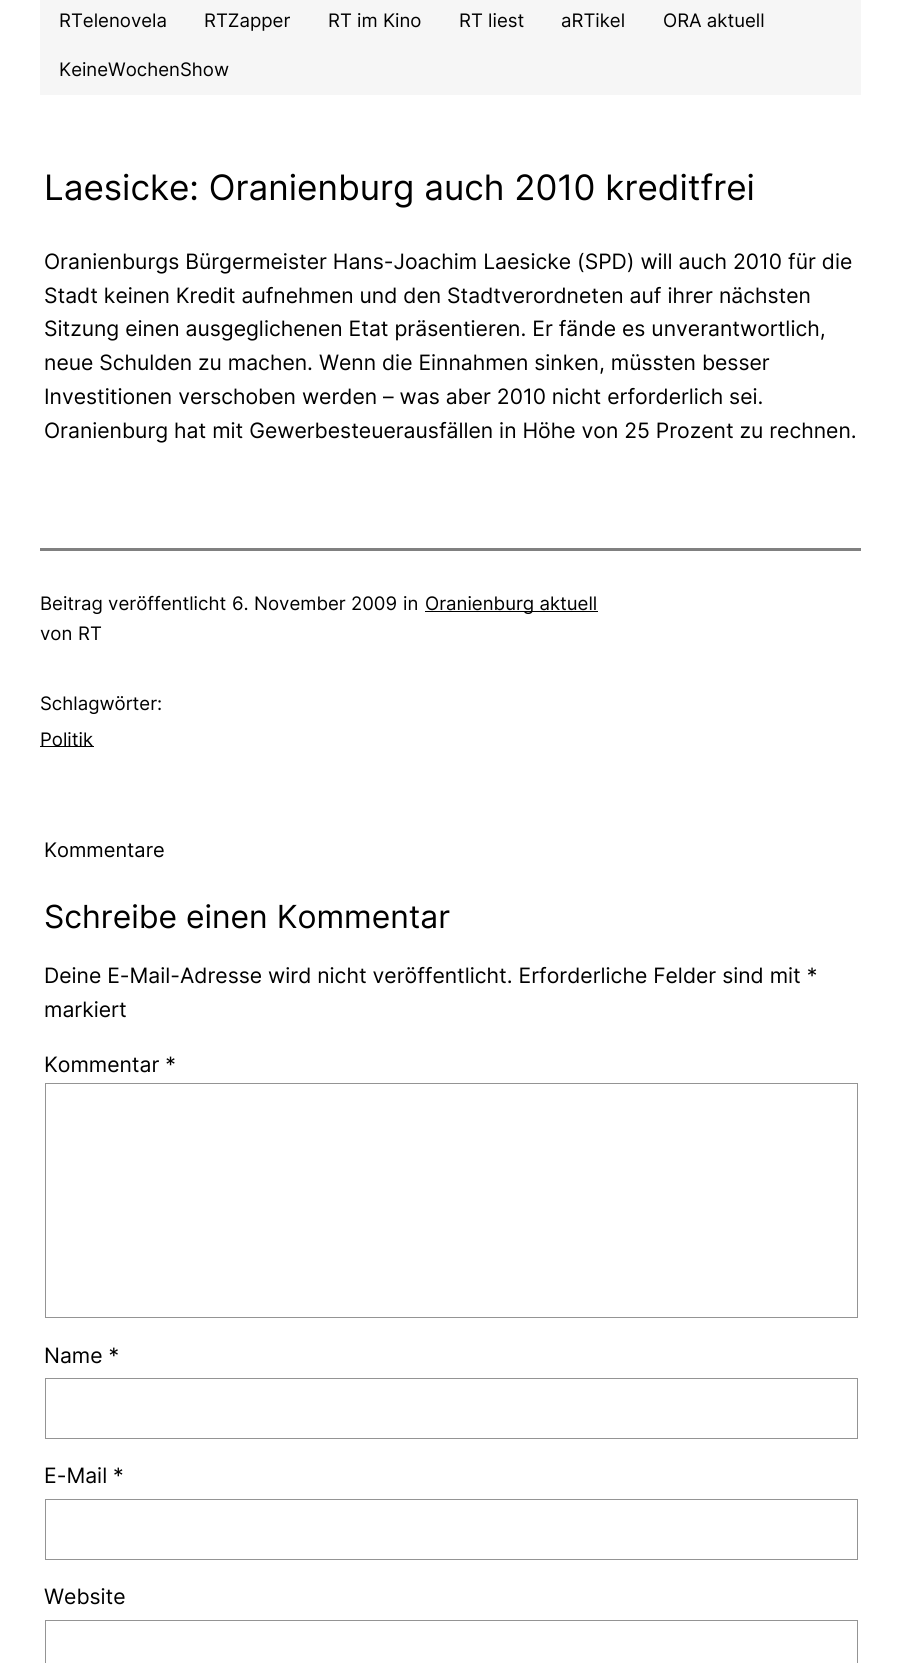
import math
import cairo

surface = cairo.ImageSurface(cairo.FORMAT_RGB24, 901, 1663)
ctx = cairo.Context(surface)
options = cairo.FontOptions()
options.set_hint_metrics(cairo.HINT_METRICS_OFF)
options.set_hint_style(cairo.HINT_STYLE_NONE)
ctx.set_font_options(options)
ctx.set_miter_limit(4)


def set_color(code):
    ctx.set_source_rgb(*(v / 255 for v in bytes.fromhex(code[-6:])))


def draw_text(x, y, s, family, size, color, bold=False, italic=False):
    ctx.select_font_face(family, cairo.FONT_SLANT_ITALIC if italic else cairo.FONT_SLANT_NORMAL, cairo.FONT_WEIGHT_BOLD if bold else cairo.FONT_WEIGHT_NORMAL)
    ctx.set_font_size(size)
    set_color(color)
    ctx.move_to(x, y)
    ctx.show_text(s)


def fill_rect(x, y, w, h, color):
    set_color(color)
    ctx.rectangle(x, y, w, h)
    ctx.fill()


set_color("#ffffff")
ctx.paint()
fill_rect(40, 0, 821, 95, "#f6f6f6")
draw_text(59, 27, "RTelenovela", "Inter", 18.6, "#000000")
draw_text(204, 27, "RTZapper", "Inter", 18.6, "#000000")
draw_text(328, 27, "RT im Kino", "Inter", 18.6, "#000000")
draw_text(459, 27, "RT liest", "Inter", 18.6, "#000000")
draw_text(561, 27, "aRTikel", "Inter", 18.6, "#000000")
draw_text(663, 27, "ORA aktuell", "Inter", 18.6, "#000000")
draw_text(59, 76, "KeineWochenShow", "Inter", 18.6, "#000000")
draw_text(44, 200, "Laesicke: Oranienburg auch 2010 kreditfrei", "Inter", 35, "#000000")
draw_text(44, 269, "Oranienburgs Bürgermeister Hans-Joachim Laesicke (SPD) will auch 2010 für die", "Inter", 21.15, "#000000")
draw_text(44, 303, "Stadt keinen Kredit aufnehmen und den Stadtverordneten auf ihrer nächsten", "Inter", 21.15, "#000000")
draw_text(44, 336, "Sitzung einen ausgeglichenen Etat präsentieren. Er fände es unverantwortlich,", "Inter", 21.15, "#000000")
draw_text(44, 370, "neue Schulden zu machen. Wenn die Einnahmen sinken, müssten besser", "Inter", 21.15, "#000000")
draw_text(44, 404, "Investitionen verschoben werden – was aber 2010 nicht erforderlich sei.", "Inter", 21.15, "#000000")
draw_text(44, 438, "Oranienburg hat mit Gewerbesteuerausfällen in Höhe von 25 Prozent zu rechnen.", "Inter", 21.15, "#000000")
fill_rect(40, 548, 821, 3, "#808080")
draw_text(40, 610, "Beitrag veröffentlicht", "Inter", 18.6, "#000000")
draw_text(232, 610, "6. November 2009", "Inter", 18.6, "#000000")
draw_text(403, 610, "in", "Inter", 18.6, "#000000")
fill_rect(425, 611, 173, 1, "#000000")
draw_text(425, 610, "Oranienburg aktuell", "Inter", 18.6, "#000000")
draw_text(40, 640, "von", "Inter", 18.6, "#000000")
draw_text(78, 640, "RT", "Inter", 18.6, "#000000")
draw_text(40, 710, "Schlagwörter:", "Inter", 18.6, "#000000")
fill_rect(40, 746, 54, 1, "#000000")
draw_text(40, 746, "Politik", "Inter", 18.6, "#000000")
draw_text(44, 857, "Kommentare", "Inter", 20, "#000000")
draw_text(44, 928, "Schreibe einen Kommentar", "Inter", 31.8, "#000000")
draw_text(44, 983, "Deine E-Mail-Adresse wird nicht veröffentlicht. Erforderliche Felder sind mit *", "Inter", 21.15, "#000000")
draw_text(44, 1017, "markiert", "Inter", 21.15, "#000000")
draw_text(44, 1072, "Kommentar *", "Inter", 21.15, "#000000")
ctx.rectangle(45.5, 1083.5, 812, 234)
set_color("#949494")
ctx.set_line_width(1)
ctx.stroke()
draw_text(44, 1363, "Name *", "Inter", 21.15, "#000000")
ctx.rectangle(45.5, 1378.5, 812, 60)
set_color("#949494")
ctx.stroke()
draw_text(44, 1483, "E-Mail *", "Inter", 21.15, "#000000")
ctx.rectangle(45.5, 1499.5, 812, 60)
set_color("#949494")
ctx.stroke()
draw_text(44, 1604, "Website", "Inter", 21.15, "#000000")
ctx.rectangle(45.5, 1620.5, 812, 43)
set_color("#949494")
ctx.stroke()
surface.write_to_png("output.png")
